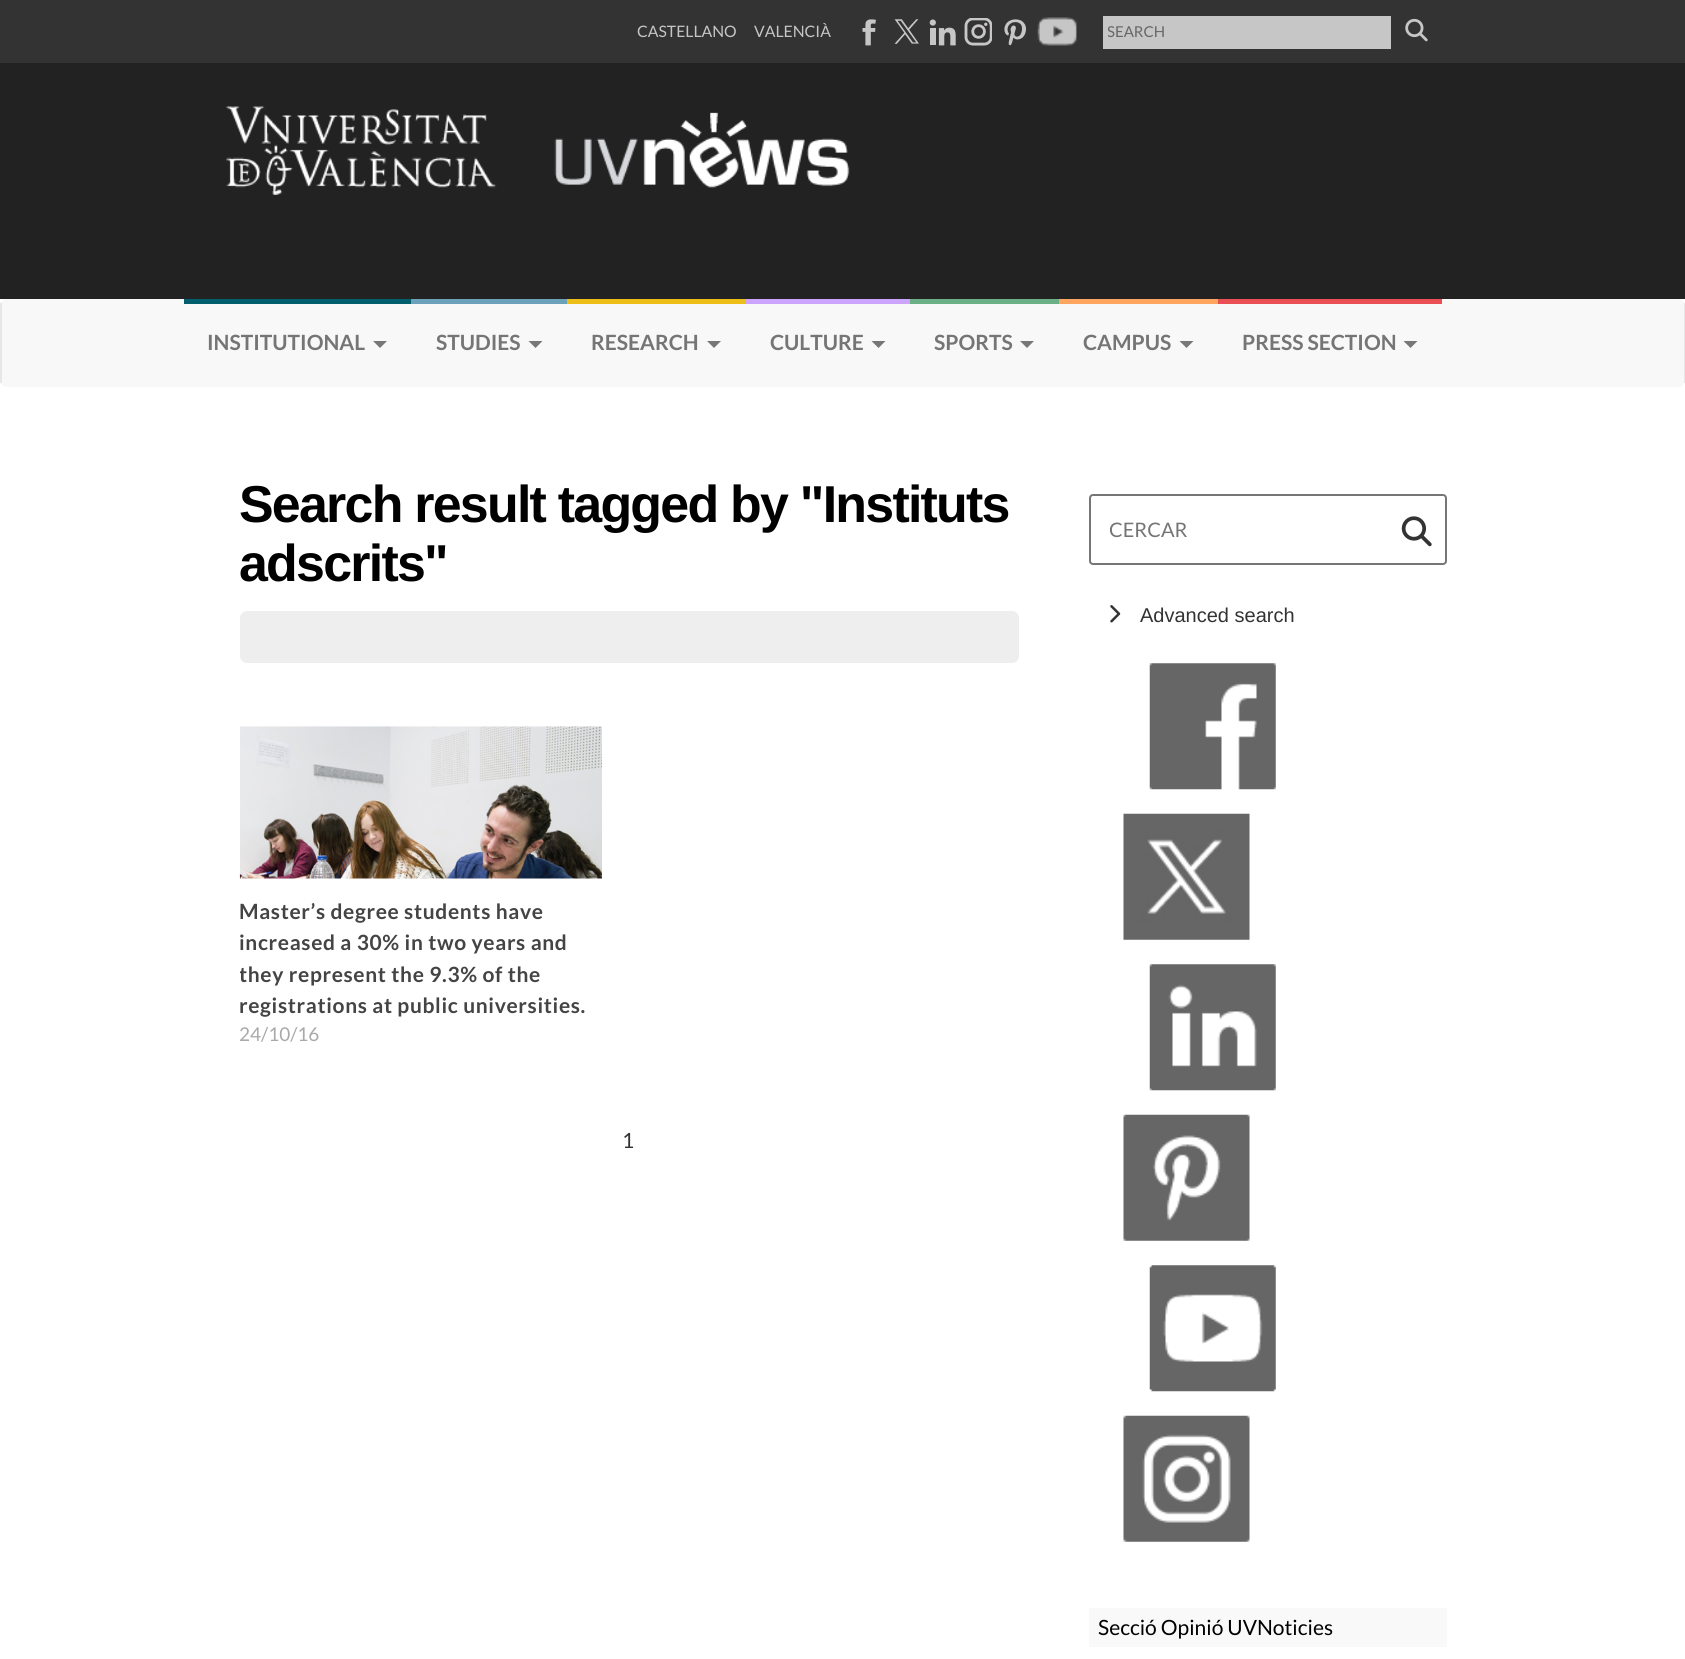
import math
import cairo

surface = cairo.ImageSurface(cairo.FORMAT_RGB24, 1685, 1659)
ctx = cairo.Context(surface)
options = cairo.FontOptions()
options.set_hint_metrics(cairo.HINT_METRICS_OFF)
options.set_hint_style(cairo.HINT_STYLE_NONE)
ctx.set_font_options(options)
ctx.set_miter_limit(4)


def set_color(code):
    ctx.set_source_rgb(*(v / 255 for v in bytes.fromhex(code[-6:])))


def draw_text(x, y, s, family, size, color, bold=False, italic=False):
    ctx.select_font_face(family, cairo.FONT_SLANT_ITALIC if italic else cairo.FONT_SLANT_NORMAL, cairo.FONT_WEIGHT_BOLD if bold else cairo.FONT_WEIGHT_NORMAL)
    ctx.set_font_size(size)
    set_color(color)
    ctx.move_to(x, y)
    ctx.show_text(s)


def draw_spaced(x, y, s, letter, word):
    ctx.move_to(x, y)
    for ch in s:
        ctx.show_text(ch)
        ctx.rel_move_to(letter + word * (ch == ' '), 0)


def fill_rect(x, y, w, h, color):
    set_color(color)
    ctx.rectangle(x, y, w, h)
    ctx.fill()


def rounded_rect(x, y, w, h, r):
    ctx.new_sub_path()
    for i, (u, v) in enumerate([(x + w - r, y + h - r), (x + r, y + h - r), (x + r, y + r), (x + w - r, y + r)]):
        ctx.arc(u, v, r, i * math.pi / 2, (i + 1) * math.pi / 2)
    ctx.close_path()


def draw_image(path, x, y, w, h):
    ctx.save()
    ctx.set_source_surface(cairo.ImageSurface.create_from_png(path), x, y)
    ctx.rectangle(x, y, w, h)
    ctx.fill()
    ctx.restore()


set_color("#ffffff")
ctx.paint()
fill_rect(0, 0, 1685, 63, "#333333")
draw_text(637, 37, "CASTELLANO", "Lato", 15.75, "#c7c6c6")
draw_text(754, 37, "VALENCIÀ", "Lato", 15.75, "#c7c6c6")
draw_image("assets/img1.png", 862, 19, 14, 27)
draw_image("assets/img2.png", 894, 19, 25, 25)
draw_image("assets/img3.png", 929, 19, 27, 27)
draw_image("assets/img4.png", 964, 18, 28, 28)
draw_image("assets/img5.png", 1004, 19, 22, 27)
draw_image("assets/img6.png", 1037, 17, 40, 29)
fill_rect(1103, 16, 288, 33, "#c7c6c6")
ctx.save()
ctx.rectangle(1108, 23, 215, 17)
ctx.clip()
draw_text(1107, 37, "SEARCH", "Lato", 15, "#666666")
ctx.restore()
draw_image("assets/img7.png", 1405, 18, 23, 24)
fill_rect(0, 63, 1685, 236, "#222222")
draw_image("assets/img8.png", 226, 106, 624, 89)
set_color("#f8f8f8")
rounded_rect(0, 299, 1685, 88, 7)
ctx.fill()
fill_rect(1684, 303, 1, 80, "#e7e7e7")
fill_rect(0, 303, 2, 80, "#e7e7e7")
fill_rect(184, 299, 227, 5, "#005e6d")
draw_text(207, 350, "INSTITUTIONAL", "Lato", 21, "#757575", bold=True)
set_color("#777777")
ctx.new_path()
ctx.move_to(373, 341)
ctx.line_to(387, 341)
ctx.line_to(380, 348)
ctx.close_path()
ctx.fill()
fill_rect(411, 299, 156, 5, "#6ca2b9")
draw_text(436, 350, "STUDIES", "Lato", 21, "#757575", bold=True)
set_color("#777777")
ctx.new_path()
ctx.move_to(528.5, 341)
ctx.line_to(542.5, 341)
ctx.line_to(535.5, 348)
ctx.close_path()
ctx.fill()
fill_rect(567, 299, 179, 5, "#edbe17")
draw_text(591, 350, "RESEARCH", "Lato", 21, "#757575", bold=True)
set_color("#777777")
ctx.new_path()
ctx.move_to(707, 341)
ctx.line_to(721, 341)
ctx.line_to(714, 348)
ctx.close_path()
ctx.fill()
fill_rect(746, 299, 164, 5, "#cda4fb")
draw_text(770, 350, "CULTURE", "Lato", 21, "#757575", bold=True)
set_color("#777777")
ctx.new_path()
ctx.move_to(871.5, 341)
ctx.line_to(885.5, 341)
ctx.line_to(878.5, 348)
ctx.close_path()
ctx.fill()
fill_rect(910, 299, 149, 5, "#6baf87")
draw_text(934, 350, "SPORTS", "Lato", 21, "#757575", bold=True)
set_color("#777777")
ctx.new_path()
ctx.move_to(1020, 341)
ctx.line_to(1034, 341)
ctx.line_to(1027, 348)
ctx.close_path()
ctx.fill()
fill_rect(1059, 299, 159, 5, "#ffa560")
draw_text(1083, 350, "CAMPUS", "Lato", 21, "#757575", bold=True)
set_color("#777777")
ctx.new_path()
ctx.move_to(1179.5, 341)
ctx.line_to(1193.5, 341)
ctx.line_to(1186.5, 348)
ctx.close_path()
ctx.fill()
fill_rect(1218, 299, 224, 5, "#ea4f54")
draw_text(1242, 350, "PRESS SECTION", "Lato", 21, "#757575", bold=True)
set_color("#777777")
ctx.new_path()
ctx.move_to(1403.5, 341)
ctx.line_to(1417.5, 341)
ctx.line_to(1410.5, 348)
ctx.close_path()
ctx.fill()
ctx.select_font_face("Liberation Sans", cairo.FONT_SLANT_NORMAL, cairo.FONT_WEIGHT_BOLD)
ctx.set_font_size(51.9)
set_color("#000000")
draw_spaced(239, 522, "Search result tagged by \"Instituts", -1.75, 0)
draw_spaced(239, 581, "adscrits\"", -1.75, 0)
set_color("#eeeeee")
rounded_rect(240, 611, 779, 52, 7)
ctx.fill()
draw_image("assets/img9.png", 239, 726, 363, 153)
ctx.select_font_face("Lato", cairo.FONT_SLANT_NORMAL, cairo.FONT_WEIGHT_BOLD)
ctx.set_font_size(21)
set_color("#444444")
draw_spaced(239, 919, "Master’s degree students have", 0.65, 0)
draw_spaced(239, 950, "increased a 30% in two years and", 0.65, 0)
ctx.save()
ctx.rectangle(240, 896, 362, 126)
ctx.clip()
draw_spaced(239, 982, "they represent the 9.3% of the", 0.65, 0)
ctx.restore()
draw_spaced(239, 1013, "registrations at public universities.", 0.65, 0)
draw_text(239, 1041, "24/10/16", "Lato", 19, "#a9a9a9")
draw_text(622, 1148, "1", "Lato", 21, "#333333")
rounded_rect(1090, 495, 356, 69, 3)
set_color("#767676")
ctx.stroke()
ctx.save()
ctx.rectangle(1110, 518, 316, 23)
ctx.clip()
draw_text(1109, 537, "CERCAR", "Lato", 20, "#757575")
ctx.restore()
draw_image("assets/img10.png", 1401, 516, 31, 31)
draw_image("assets/img11.png", 1110, 605, 11, 18)
draw_text(1140, 622, "Advanced search", "Liberation Sans", 20, "#333333")
draw_image("assets/img12.png", 1149, 663, 127, 127)
draw_image("assets/img13.png", 1123, 813, 127, 127)
draw_image("assets/img14.png", 1149, 964, 127, 127)
draw_image("assets/img15.png", 1123, 1114, 127, 127)
draw_image("assets/img16.png", 1149, 1265, 127, 127)
draw_image("assets/img17.png", 1123, 1415, 127, 127)
fill_rect(1089, 1608, 358, 39, "#f9f9f9")
draw_text(1098, 1635, "Secció Opinió UVNoticies", "Lato", 21, "#000000")
surface.write_to_png("output.png")
